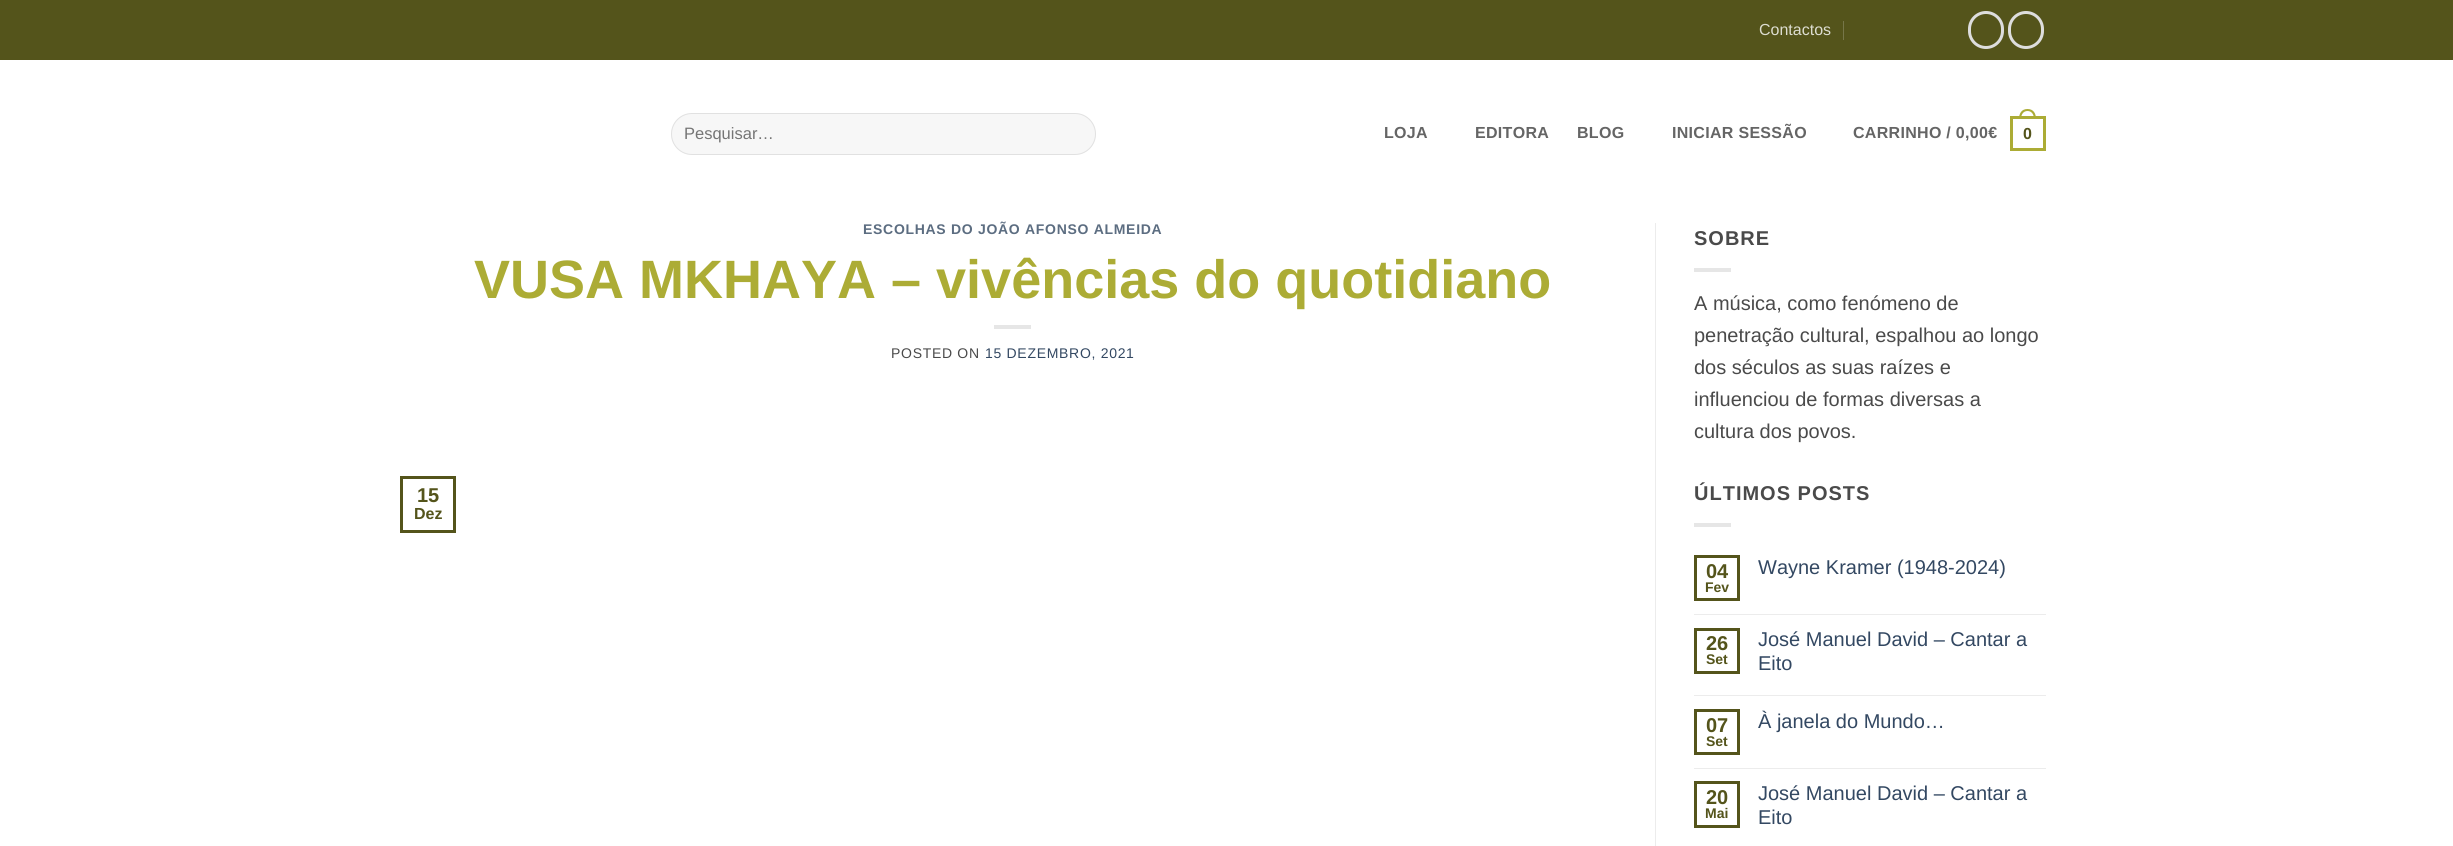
import math
import cairo

surface = cairo.ImageSurface(cairo.FORMAT_RGB24, 2453, 846)
ctx = cairo.Context(surface)
options = cairo.FontOptions()
options.set_hint_metrics(cairo.HINT_METRICS_OFF)
options.set_hint_style(cairo.HINT_STYLE_NONE)
ctx.set_font_options(options)
ctx.set_miter_limit(4)


def set_color(code):
    ctx.set_source_rgb(*(v / 255 for v in bytes.fromhex(code[-6:])))


def draw_text(x, y, s, family, size, color, bold=False, italic=False):
    ctx.select_font_face(family, cairo.FONT_SLANT_ITALIC if italic else cairo.FONT_SLANT_NORMAL, cairo.FONT_WEIGHT_BOLD if bold else cairo.FONT_WEIGHT_NORMAL)
    ctx.set_font_size(size)
    set_color(color)
    ctx.move_to(x, y)
    ctx.show_text(s)


def draw_spaced(x, y, s, letter, word):
    ctx.move_to(x, y)
    for ch in s:
        ctx.show_text(ch)
        ctx.rel_move_to(letter + word * (ch == ' '), 0)


def fill_rect(x, y, w, h, color):
    set_color(color)
    ctx.rectangle(x, y, w, h)
    ctx.fill()


def rounded_rect(x, y, w, h, r):
    ctx.new_sub_path()
    for i, (u, v) in enumerate([(x + w - r, y + h - r), (x + r, y + h - r), (x + r, y + r), (x + w - r, y + r)]):
        ctx.arc(u, v, r, i * math.pi / 2, (i + 1) * math.pi / 2)
    ctx.close_path()


set_color("#ffffff")
ctx.paint()
fill_rect(0, 0, 2453, 60, "#54541b")
draw_text(1759, 35, "Contactos", "Liberation Sans", 16, "#ddddd1")
fill_rect(1843, 21, 1, 19, "#767649")
rounded_rect(1969.5, 12.5, 33, 35, 16.5)
set_color("#dddddd")
ctx.set_line_width(3)
ctx.stroke()
rounded_rect(2009.5, 12.5, 33, 35, 16.5)
ctx.stroke()
set_color("#f7f7f7")
rounded_rect(671, 113, 425, 42, 21)
ctx.fill()
rounded_rect(671.5, 113.5, 424, 41, 20.5)
ctx.set_source_rgba(0, 0, 0, 0.09)
ctx.set_line_width(1)
ctx.stroke()
draw_text(684, 139, "Pesquisar…", "Liberation Sans", 16.5, "#757575")
ctx.select_font_face("Liberation Sans", cairo.FONT_SLANT_NORMAL, cairo.FONT_WEIGHT_BOLD)
ctx.set_font_size(16)
set_color("#656565")
draw_spaced(1384, 138, "LOJA", 0.3, 0)
draw_spaced(1475, 138, "EDITORA", 0.3, 0)
draw_spaced(1577, 138, "BLOG", 0.3, 0)
draw_spaced(1672, 138, "INICIAR SESSÃO", 0.3, 0)
draw_spaced(1853, 138, "CARRINHO / 0,00€", 0.3, 0)
ctx.rectangle(2011.5, 117.5, 33, 32)
set_color("#acac35")
ctx.set_line_width(3)
ctx.stroke()
ctx.set_fill_rule(cairo.FILL_RULE_EVEN_ODD)
ctx.new_path()
ctx.move_to(2027.5, 109)
ctx.curve_to(2033.5, 109, 2036, 113.5, 2036, 119)
ctx.line_to(2019, 119)
ctx.curve_to(2019, 113.5, 2021.5, 109, 2027.5, 109)
ctx.close_path()
ctx.move_to(2027.5, 111)
ctx.curve_to(2032, 111, 2034, 115, 2034, 119)
ctx.line_to(2021, 119)
ctx.curve_to(2021, 115, 2023, 111, 2027.5, 111)
ctx.close_path()
ctx.fill()
set_color("#54541b")
draw_spaced(2023, 139, "0", 0.3, 0)
ctx.set_font_size(14)
set_color("#5c6d81")
draw_spaced(863, 234, "ESCOLHAS DO JOÃO AFONSO ALMEIDA", 0.7, 0)
draw_text(474, 298, "VUSA MKHAYA – vivências do quotidiano", "Liberation Sans", 54, "#acac35", bold=True)
fill_rect(994, 325, 37, 4, "#e6e6e6")
ctx.select_font_face("Liberation Sans")
ctx.set_font_size(14)
set_color("#4a4a4a")
draw_spaced(891, 358, "POSTED ON", 0.7, 0)
set_color("#334862")
draw_spaced(985, 358, "15 DEZEMBRO, 2021", 0.7, 0)
ctx.rectangle(401.5, 477.5, 53, 54)
set_color("#54541b")
ctx.stroke()
draw_text(417, 502, "15", "Liberation Sans", 20, "#54541b", bold=True)
draw_text(414, 519, "Dez", "Liberation Sans", 16, "#54541b", bold=True)
fill_rect(1655, 223, 1, 623, "#ececec")
ctx.set_font_size(20)
set_color("#4a4a4a")
draw_spaced(1694, 245, "SOBRE", 1, 0)
fill_rect(1694, 268, 37, 4, "#e6e6e6")
draw_text(1694, 310, "A música, como fenómeno de", "Liberation Sans", 20, "#4a4a4a")
draw_text(1694, 342, "penetração cultural, espalhou ao longo", "Liberation Sans", 20, "#4a4a4a")
draw_text(1694, 374, "dos séculos as suas raízes e", "Liberation Sans", 20, "#4a4a4a")
draw_text(1694, 406, "influenciou de formas diversas a", "Liberation Sans", 20, "#4a4a4a")
draw_text(1694, 438, "cultura dos povos.", "Liberation Sans", 20, "#4a4a4a")
ctx.select_font_face("Liberation Sans", cairo.FONT_SLANT_NORMAL, cairo.FONT_WEIGHT_BOLD)
draw_spaced(1694, 500, "ÚLTIMOS POSTS", 1, 0)
fill_rect(1694, 523, 37, 4, "#e6e6e6")
ctx.rectangle(1695.5, 556.5, 43, 43)
set_color("#54541b")
ctx.stroke()
draw_text(1706, 578, "04", "Liberation Sans", 20, "#54541b", bold=True)
draw_text(1705, 592, "Fev", "Liberation Sans", 14, "#54541b", bold=True)
draw_text(1758, 574, "Wayne Kramer (1948-2024)", "Liberation Sans", 20, "#334862")
fill_rect(1694, 614, 352, 1, "#ececec")
ctx.rectangle(1695.5, 629.5, 43, 43)
set_color("#54541b")
ctx.stroke()
draw_text(1706, 650, "26", "Liberation Sans", 20, "#54541b", bold=True)
draw_text(1706, 664, "Set", "Liberation Sans", 14, "#54541b", bold=True)
draw_text(1758, 646, "José Manuel David – Cantar a", "Liberation Sans", 20, "#334862")
draw_text(1758, 670, "Eito", "Liberation Sans", 20, "#334862")
fill_rect(1694, 695, 352, 1, "#ececec")
ctx.rectangle(1695.5, 710.5, 43, 43)
set_color("#54541b")
ctx.stroke()
draw_text(1706, 732, "07", "Liberation Sans", 20, "#54541b", bold=True)
draw_text(1706, 746, "Set", "Liberation Sans", 14, "#54541b", bold=True)
draw_text(1758, 728, "À janela do Mundo…", "Liberation Sans", 20, "#334862")
fill_rect(1694, 768, 352, 1, "#ececec")
ctx.rectangle(1695.5, 782.5, 43, 44)
set_color("#54541b")
ctx.stroke()
draw_text(1706, 804, "20", "Liberation Sans", 20, "#54541b", bold=True)
draw_text(1705, 818, "Mai", "Liberation Sans", 14, "#54541b", bold=True)
draw_text(1758, 800, "José Manuel David – Cantar a", "Liberation Sans", 20, "#334862")
draw_text(1758, 824, "Eito", "Liberation Sans", 20, "#334862")
surface.write_to_png("output.png")
